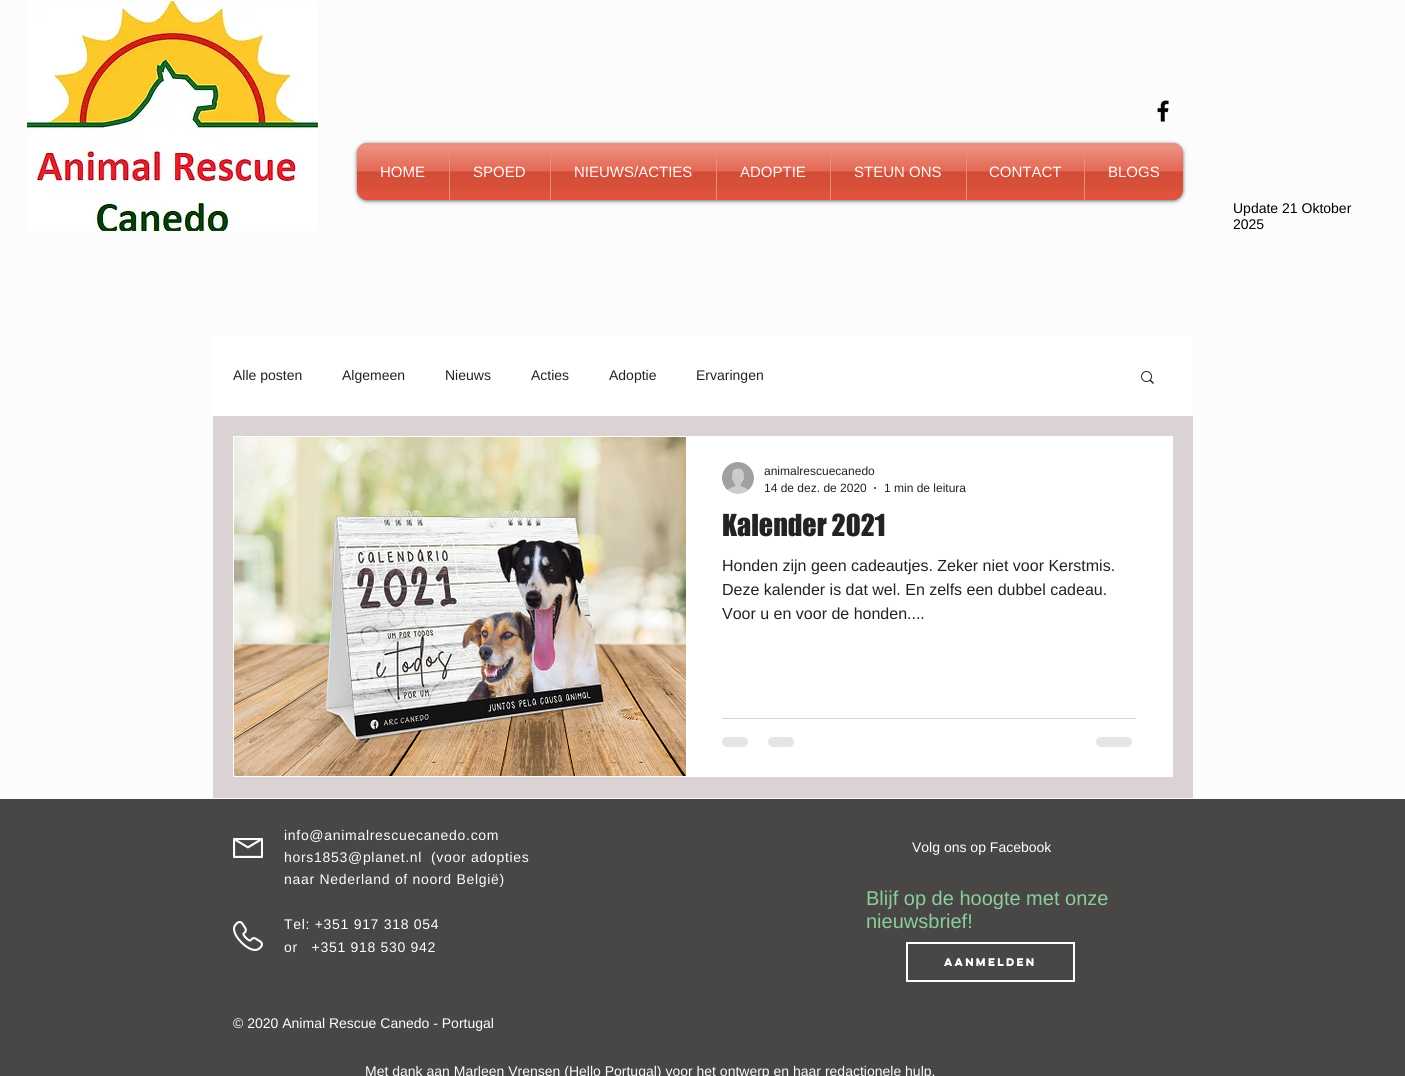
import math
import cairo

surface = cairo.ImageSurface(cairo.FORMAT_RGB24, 1405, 1076)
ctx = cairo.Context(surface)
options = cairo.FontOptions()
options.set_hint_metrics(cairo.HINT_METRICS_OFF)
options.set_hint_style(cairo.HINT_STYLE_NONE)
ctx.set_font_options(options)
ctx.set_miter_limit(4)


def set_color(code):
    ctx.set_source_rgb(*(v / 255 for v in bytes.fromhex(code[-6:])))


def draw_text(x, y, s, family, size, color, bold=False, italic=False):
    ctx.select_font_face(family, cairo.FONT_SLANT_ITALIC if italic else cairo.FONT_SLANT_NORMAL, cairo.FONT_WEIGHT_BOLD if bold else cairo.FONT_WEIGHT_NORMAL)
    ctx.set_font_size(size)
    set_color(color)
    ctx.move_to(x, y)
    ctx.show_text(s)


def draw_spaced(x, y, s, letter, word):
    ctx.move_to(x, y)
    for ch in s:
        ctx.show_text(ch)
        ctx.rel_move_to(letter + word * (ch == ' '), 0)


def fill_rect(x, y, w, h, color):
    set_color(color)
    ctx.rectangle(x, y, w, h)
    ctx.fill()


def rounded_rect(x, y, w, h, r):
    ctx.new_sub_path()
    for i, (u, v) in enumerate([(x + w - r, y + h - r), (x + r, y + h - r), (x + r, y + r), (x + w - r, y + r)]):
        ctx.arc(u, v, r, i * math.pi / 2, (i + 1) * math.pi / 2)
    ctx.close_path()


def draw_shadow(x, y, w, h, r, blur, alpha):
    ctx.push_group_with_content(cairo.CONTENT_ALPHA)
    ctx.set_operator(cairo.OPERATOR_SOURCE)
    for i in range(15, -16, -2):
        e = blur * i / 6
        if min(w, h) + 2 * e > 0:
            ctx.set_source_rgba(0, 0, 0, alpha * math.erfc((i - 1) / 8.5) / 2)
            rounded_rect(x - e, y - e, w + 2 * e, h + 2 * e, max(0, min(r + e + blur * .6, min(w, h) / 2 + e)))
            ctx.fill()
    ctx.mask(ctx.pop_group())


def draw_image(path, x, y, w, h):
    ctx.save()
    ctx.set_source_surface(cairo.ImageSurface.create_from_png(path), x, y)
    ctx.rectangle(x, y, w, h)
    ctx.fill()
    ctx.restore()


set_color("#fcfcfc")
ctx.paint()
draw_image("assets/img1.png", 27, 1, 291, 230)
draw_image("assets/img2.png", 1157, 100, 12, 22)
set_color("#000000")
draw_shadow(357, 144, 826, 57, 10, 2, 0.6)
draw_image("assets/img3.png", 357, 143, 826, 48)
set_color("#e1533c")
ctx.new_path()
ctx.move_to(367, 143)
ctx.line_to(449, 143)
ctx.line_to(449, 200)
ctx.line_to(367, 200)
ctx.curve_to(361.5, 200, 357, 195.5, 357, 190)
ctx.line_to(357, 153)
ctx.curve_to(357, 147.5, 361.5, 143, 367, 143)
ctx.close_path()
ctx.fill()
draw_text(380, 177, "HOME", "Liberation Sans", 15, "#ffffff")
draw_image("assets/img4.png", 357, 143, 92, 49)
fill_rect(450, 143, 100, 57, "#e1533c")
fill_rect(449, 143, 1, 57, "#ea8d80")
draw_text(473, 177, "SPOED", "Liberation Sans", 15, "#ffffff")
draw_image("assets/img5.png", 450, 143, 100, 49)
fill_rect(551, 143, 165, 57, "#e1533c")
fill_rect(550, 143, 1, 57, "#ea8d80")
draw_text(574, 177, "NIEUWS/ACTIES", "Liberation Sans", 15, "#ffffff")
draw_image("assets/img6.png", 551, 143, 165, 49)
fill_rect(717, 143, 113, 57, "#e1533c")
fill_rect(716, 143, 1, 57, "#ea8d80")
draw_text(740, 177, "ADOPTIE", "Liberation Sans", 15, "#ffffff")
draw_image("assets/img7.png", 717, 143, 113, 49)
fill_rect(831, 143, 135, 57, "#e1533c")
fill_rect(830, 143, 1, 57, "#ea8d80")
draw_text(854, 177, "STEUN ONS", "Liberation Sans", 15, "#ffffff")
draw_image("assets/img8.png", 831, 143, 135, 49)
fill_rect(967, 143, 117, 57, "#e1533c")
fill_rect(966, 143, 1, 57, "#ea8d80")
draw_text(989, 177, "CONTACT", "Liberation Sans", 15, "#ffffff")
draw_image("assets/img9.png", 967, 143, 117, 49)
set_color("#e1533c")
ctx.new_path()
ctx.move_to(1084, 143)
ctx.line_to(1173, 143)
ctx.curve_to(1178.5, 143, 1183, 147.5, 1183, 153)
ctx.line_to(1183, 190)
ctx.curve_to(1183, 195.5, 1178.5, 200, 1173, 200)
ctx.line_to(1084, 200)
ctx.close_path()
ctx.fill()
fill_rect(1084, 143, 1, 57, "#ea8d80")
draw_text(1108, 177, "BLOGS", "Liberation Sans", 15, "#ffffff")
draw_image("assets/img10.png", 1085, 143, 98, 49)
draw_text(1233, 213, "Update 21 Oktober", "Liberation Sans", 14, "#000000")
draw_text(1233, 229, "2025", "Liberation Sans", 14, "#000000")
fill_rect(213, 416, 980, 382, "#dbd3d3")
fill_rect(213, 336, 980, 80, "#ffffff")
draw_text(233, 380, "Alle posten", "Liberation Sans", 14, "#232323")
draw_text(342, 380, "Algemeen", "Liberation Sans", 14, "#232323")
draw_text(445, 380, "Nieuws", "Liberation Sans", 14, "#232323")
draw_text(531, 380, "Acties", "Liberation Sans", 14, "#232323")
draw_text(609, 380, "Adoptie", "Liberation Sans", 14, "#232323")
draw_text(696, 380, "Ervaringen", "Liberation Sans", 14, "#232323")
draw_image("assets/img11.png", 1141, 371, 13, 13)
ctx.rectangle(233.5, 436.5, 939, 340)
set_color("#ffffff")
ctx.set_line_width(1)
ctx.stroke()
draw_image("assets/img12.png", 234, 437, 452, 339)
fill_rect(686, 437, 486, 339, "#ffffff")
draw_image("assets/img13.png", 722, 462, 32, 32)
draw_text(764, 475, "animalrescuecanedo", "Liberation Sans", 12, "#232323")
draw_text(764, 492, "14 de dez. de 2020", "Liberation Sans", 12, "#232323")
ctx.new_path()
ctx.arc(875, 488, 1, 0, 2 * math.pi)
ctx.fill()
draw_text(884, 492, "1 min de leitura", "Liberation Sans", 12, "#232323")
draw_text(722, 536, "Kalender 2021", "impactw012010", 28, "#232323")
draw_text(722, 571, "Honden zijn geen cadeautjes. Zeker niet voor Kerstmis.", "Liberation Sans", 16, "#232323")
draw_text(722, 595, "Deze kalender is dat wel. En zelfs een dubbel cadeau.", "Liberation Sans", 16, "#232323")
draw_text(722, 619, "Voor u en voor de honden....", "Liberation Sans", 16, "#232323")
fill_rect(722, 718, 414, 1, "#d3d3d3")
set_color("#e5e5e5")
rounded_rect(722, 737, 26, 10, 5)
ctx.fill()
rounded_rect(768, 737, 26, 10, 5)
ctx.fill()
rounded_rect(1096, 737, 36, 10, 5)
ctx.fill()
fill_rect(0, 799, 1405, 277, "#494646")
draw_image("assets/img14.png", 233, 838, 30, 20)
ctx.set_font_size(14)
set_color("#ffffff")
draw_spaced(284, 840, "info@animalrescuecanedo.com", 0.7, 0)
draw_spaced(284, 862, "hors1853@planet.nl", 0.7, 0)
draw_spaced(431, 862, "(voor adopties", 0.7, 0)
draw_spaced(284, 884, "naar Nederland of noord België)", 0.7, 0)
draw_spaced(284, 929, "Tel: +351 917 318 054", 0.7, 0)
draw_spaced(284, 952, "or   +351 918 530 942", 0.7, 0)
draw_text(912, 852, "Volg ons op Facebook", "Liberation Sans", 14, "#ffffff")
draw_text(866, 905, "Blijf op de hoogte met onze", "Liberation Sans", 20, "#8bce9b")
draw_text(866, 928, "nieuwsbrief!", "Liberation Sans", 20, "#8bce9b")
draw_image("assets/img15.png", 233, 921, 30, 30)
ctx.rectangle(907, 943, 167, 38)
set_color("#ffffff")
ctx.set_line_width(2)
ctx.stroke()
draw_text(944, 966, "Aanmelden", "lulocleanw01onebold", 10, "#ffffff", bold=True)
draw_text(233, 1028, "© 2020 Animal Rescue Canedo - Portugal", "Liberation Sans", 14, "#ffffff")
draw_text(365, 1076, "Met dank aan Marleen Vrensen (Hello Portugal) voor het ontwerp en haar redactionele hulp.", "Liberation Sans", 14, "#ffffff")
surface.write_to_png("output.png")
